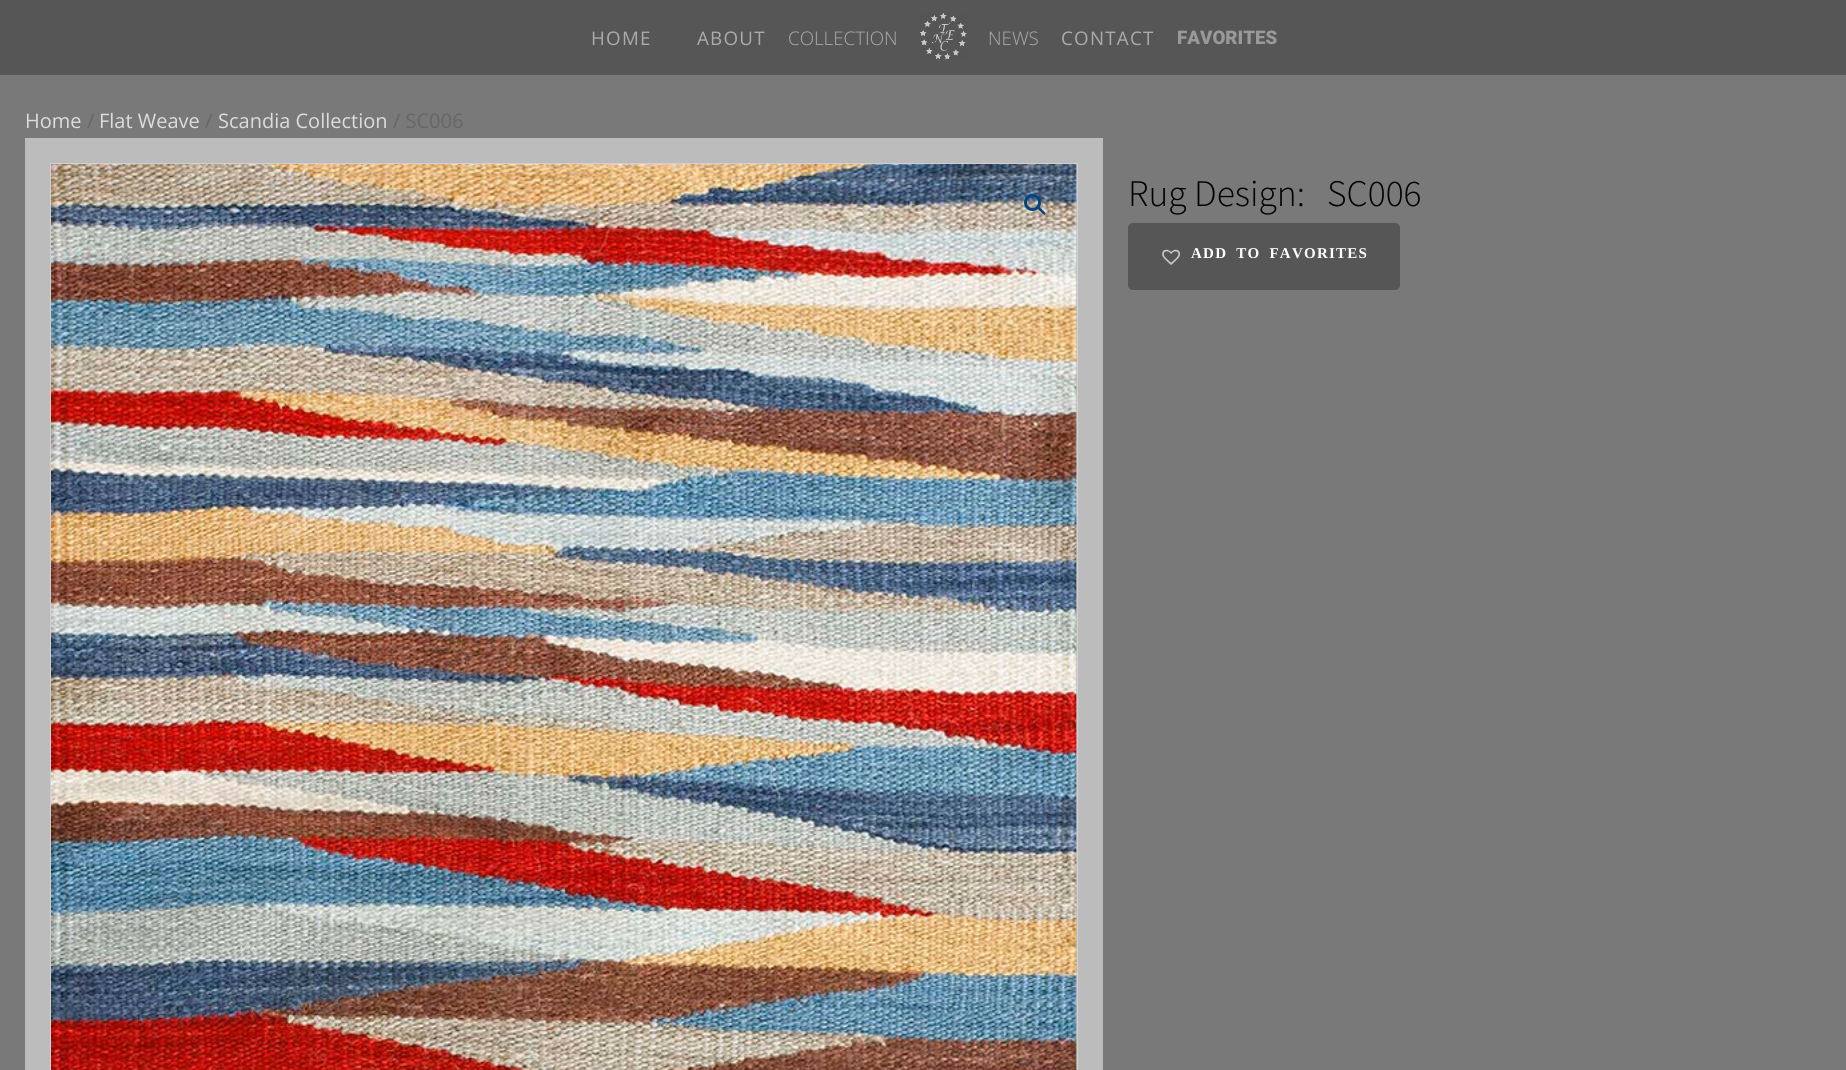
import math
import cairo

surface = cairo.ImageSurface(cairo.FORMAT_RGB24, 1846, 1070)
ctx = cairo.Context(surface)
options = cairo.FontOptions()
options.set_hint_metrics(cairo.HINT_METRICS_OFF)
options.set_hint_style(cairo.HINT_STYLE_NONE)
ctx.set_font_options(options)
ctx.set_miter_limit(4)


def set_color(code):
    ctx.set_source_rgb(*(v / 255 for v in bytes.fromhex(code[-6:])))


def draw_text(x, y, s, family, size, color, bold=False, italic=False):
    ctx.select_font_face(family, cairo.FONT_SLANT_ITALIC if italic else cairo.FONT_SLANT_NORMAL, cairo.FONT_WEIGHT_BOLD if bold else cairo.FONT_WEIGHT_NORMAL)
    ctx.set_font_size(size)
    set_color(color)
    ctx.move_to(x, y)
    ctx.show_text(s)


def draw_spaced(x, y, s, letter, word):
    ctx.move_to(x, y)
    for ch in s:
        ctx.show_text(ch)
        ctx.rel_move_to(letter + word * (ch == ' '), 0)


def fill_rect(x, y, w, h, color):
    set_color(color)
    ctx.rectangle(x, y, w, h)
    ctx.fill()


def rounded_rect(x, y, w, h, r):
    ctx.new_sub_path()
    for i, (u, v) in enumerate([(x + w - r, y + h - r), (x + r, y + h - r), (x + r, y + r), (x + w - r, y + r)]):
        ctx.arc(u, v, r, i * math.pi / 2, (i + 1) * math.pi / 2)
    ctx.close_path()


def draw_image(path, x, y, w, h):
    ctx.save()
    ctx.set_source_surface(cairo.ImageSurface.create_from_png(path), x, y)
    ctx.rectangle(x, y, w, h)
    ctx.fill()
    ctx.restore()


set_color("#565656")
ctx.paint()
ctx.select_font_face("Open Sans")
ctx.set_font_size(18.75)
set_color("#ababab")
draw_spaced(591, 45, "HOME", 1.25, 0)
draw_spaced(697, 45, "ABOUT", 1.25, 0)
draw_text(788, 45, "COLLECTION", "Open Sans Light", 18.75, "#ababab")
draw_image("assets/img1.png", 920, 13, 47, 47)
draw_text(988, 45, "NEWS", "Open Sans Light", 18.75, "#ababab")
ctx.select_font_face("Open Sans")
draw_spaced(1061, 45, "CONTACT", 1.25, 0)
draw_text(1177, 44, "FAVORITES", "Roboto Black", 18.75, "#999999")
fill_rect(0, 75, 1846, 995, "#7a7979")
draw_text(25, 128, "Home", "Open Sans", 20, "#dddddd")
draw_text(87, 128, "/", "Open Sans", 20, "#666666")
draw_text(99, 128, "Flat Weave", "Open Sans", 20, "#dddddd")
draw_text(205, 128, "/", "Open Sans", 20, "#666666")
draw_text(218, 128, "Scandia Collection", "Open Sans", 20, "#dddddd")
draw_text(393, 128, "/ SC006", "Open Sans", 20, "#666666")
fill_rect(25, 138, 1078, 932, "#bcbcbc")
ctx.rectangle(50.5, 163.5, 1027, 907)
set_color("#d3ced2")
ctx.set_line_width(1)
ctx.stroke()
draw_image("assets/img2.png", 51, 164, 1026, 906)
ctx.arc(1032.5, 202.5, 7, 0, 2 * math.pi)
set_color("#004482")
ctx.set_line_width(3)
ctx.stroke()
ctx.new_path()
ctx.move_to(1038, 207)
ctx.curve_to(1039.5, 206, 1041.5, 209, 1042.5, 210)
ctx.curve_to(1043, 210.5, 1046.5, 213, 1045, 214.5)
ctx.curve_to(1043.5, 215.5, 1041.5, 212.5, 1040.5, 211.5)
ctx.curve_to(1040, 211, 1036.5, 208.5, 1038, 207)
ctx.close_path()
ctx.fill()
draw_text(1128, 206, "Rug Design:", "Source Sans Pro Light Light", 37.5, "#000000")
draw_text(1327, 206, "SC006", "Source Sans Pro Light Light", 37.5, "#000000")
set_color("#565656")
rounded_rect(1128.5, 223.5, 271, 66, 4.5)
ctx.fill_preserve()
ctx.set_line_width(1)
ctx.stroke()
draw_image("assets/img3.png", 1162, 249, 18, 16)
ctx.select_font_face("Liberation Serif", cairo.FONT_SLANT_NORMAL, cairo.FONT_WEIGHT_BOLD)
ctx.set_font_size(15)
set_color("#ffffff")
draw_spaced(1191, 258, "ADD TO FAVORITES", 1.25, 4)
surface.write_to_png("output.png")
